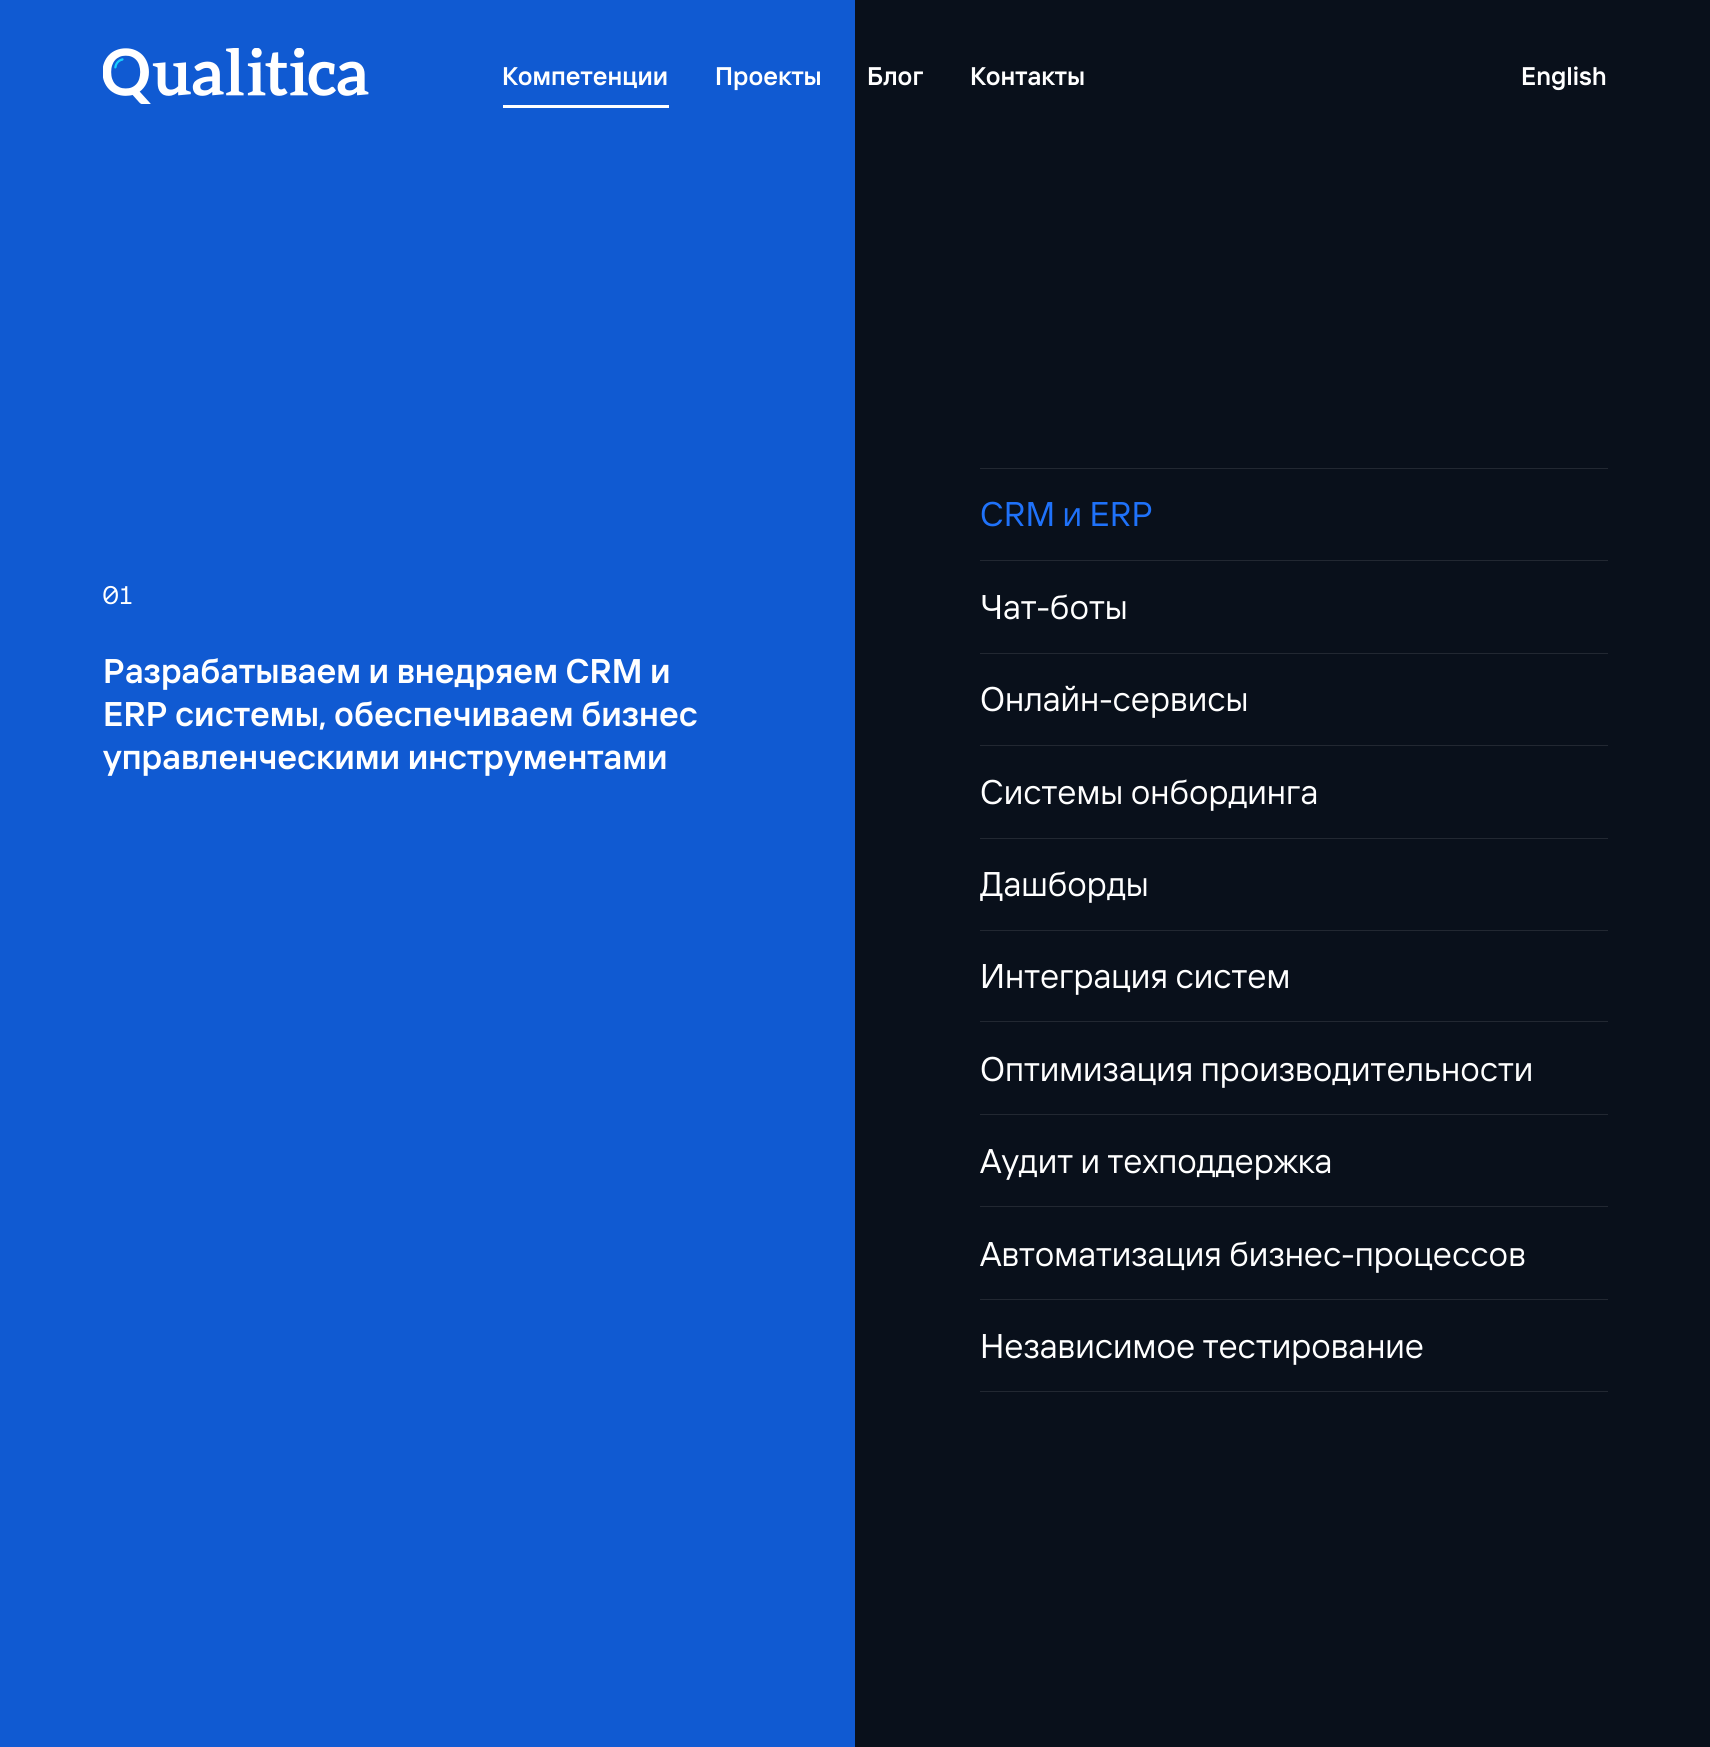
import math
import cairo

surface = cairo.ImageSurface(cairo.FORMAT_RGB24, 1710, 1747)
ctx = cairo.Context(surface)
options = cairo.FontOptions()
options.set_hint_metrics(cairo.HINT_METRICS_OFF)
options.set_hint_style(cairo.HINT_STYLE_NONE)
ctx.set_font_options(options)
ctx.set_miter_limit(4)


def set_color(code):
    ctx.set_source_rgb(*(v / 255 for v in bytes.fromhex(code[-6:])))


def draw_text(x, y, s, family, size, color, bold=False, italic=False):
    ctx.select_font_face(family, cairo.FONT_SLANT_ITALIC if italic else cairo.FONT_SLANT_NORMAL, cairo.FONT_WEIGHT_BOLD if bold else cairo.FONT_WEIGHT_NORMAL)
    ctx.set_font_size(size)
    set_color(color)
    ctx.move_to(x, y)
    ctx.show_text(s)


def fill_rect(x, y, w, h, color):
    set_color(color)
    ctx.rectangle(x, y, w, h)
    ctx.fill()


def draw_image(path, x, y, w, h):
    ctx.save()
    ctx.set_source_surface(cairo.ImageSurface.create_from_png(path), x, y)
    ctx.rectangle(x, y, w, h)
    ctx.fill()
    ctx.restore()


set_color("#09101b")
ctx.paint()
fill_rect(0, 0, 855, 1747, "#105ad2")
draw_image("assets/img1.png", 103, 48, 266, 56)
draw_text(502, 85, "Компетенции", "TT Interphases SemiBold", 25.5, "#ffffff")
fill_rect(503, 105, 166, 3, "#ffffff")
draw_text(715, 85, "Проекты", "TT Interphases SemiBold", 25.5, "#ffffff")
draw_text(867, 85, "Блог", "TT Interphases SemiBold", 25.5, "#ffffff")
draw_text(970, 85, "Контакты", "TT Interphases SemiBold", 25.5, "#ffffff")
draw_text(1521, 85, "English", "TT Interphases SemiBold", 25.5, "#ffffff")
draw_text(103, 604, "01", "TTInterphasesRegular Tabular", 25.5, "#ffffff")
draw_text(103, 683, "Разрабатываем и внедряем CRM и", "TT Interphases SemiBold", 34.25, "#ffffff")
draw_text(103, 726, "ERP системы, обеспечиваем бизнес", "TT Interphases SemiBold", 34.25, "#ffffff")
draw_text(103, 769, "управленческими инструментами", "TT Interphases SemiBold", 34.25, "#ffffff")
fill_rect(980, 468, 628, 1, "#222832")
fill_rect(980, 560, 628, 1, "#222832")
draw_text(980, 526, "CRM и ERP", "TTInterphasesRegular", 34.25, "#1f72fa")
fill_rect(980, 653, 628, 1, "#222832")
draw_text(980, 619, "Чат-боты", "TTInterphasesRegular", 34.25, "#ffffff")
fill_rect(980, 745, 628, 1, "#222832")
draw_text(980, 711, "Онлайн-сервисы", "TTInterphasesRegular", 34.25, "#ffffff")
fill_rect(980, 838, 628, 1, "#222832")
draw_text(980, 804, "Системы онбординга", "TTInterphasesRegular", 34.25, "#ffffff")
fill_rect(980, 930, 628, 1, "#222832")
draw_text(980, 896, "Дашборды", "TTInterphasesRegular", 34.25, "#ffffff")
fill_rect(980, 1021, 628, 1, "#222832")
draw_text(980, 988, "Интеграция систем", "TTInterphasesRegular", 34.25, "#ffffff")
fill_rect(980, 1114, 628, 1, "#222832")
draw_text(980, 1081, "Оптимизация производительности", "TTInterphasesRegular", 34.25, "#ffffff")
fill_rect(980, 1206, 628, 1, "#222832")
draw_text(980, 1173, "Аудит и техподдержка", "TTInterphasesRegular", 34.25, "#ffffff")
fill_rect(980, 1299, 628, 1, "#222832")
draw_text(980, 1266, "Автоматизация бизнес-процессов", "TTInterphasesRegular", 34.25, "#ffffff")
fill_rect(980, 1391, 628, 1, "#222832")
draw_text(980, 1358, "Независимое тестирование", "TTInterphasesRegular", 34.25, "#ffffff")
surface.write_to_png("output.png")
